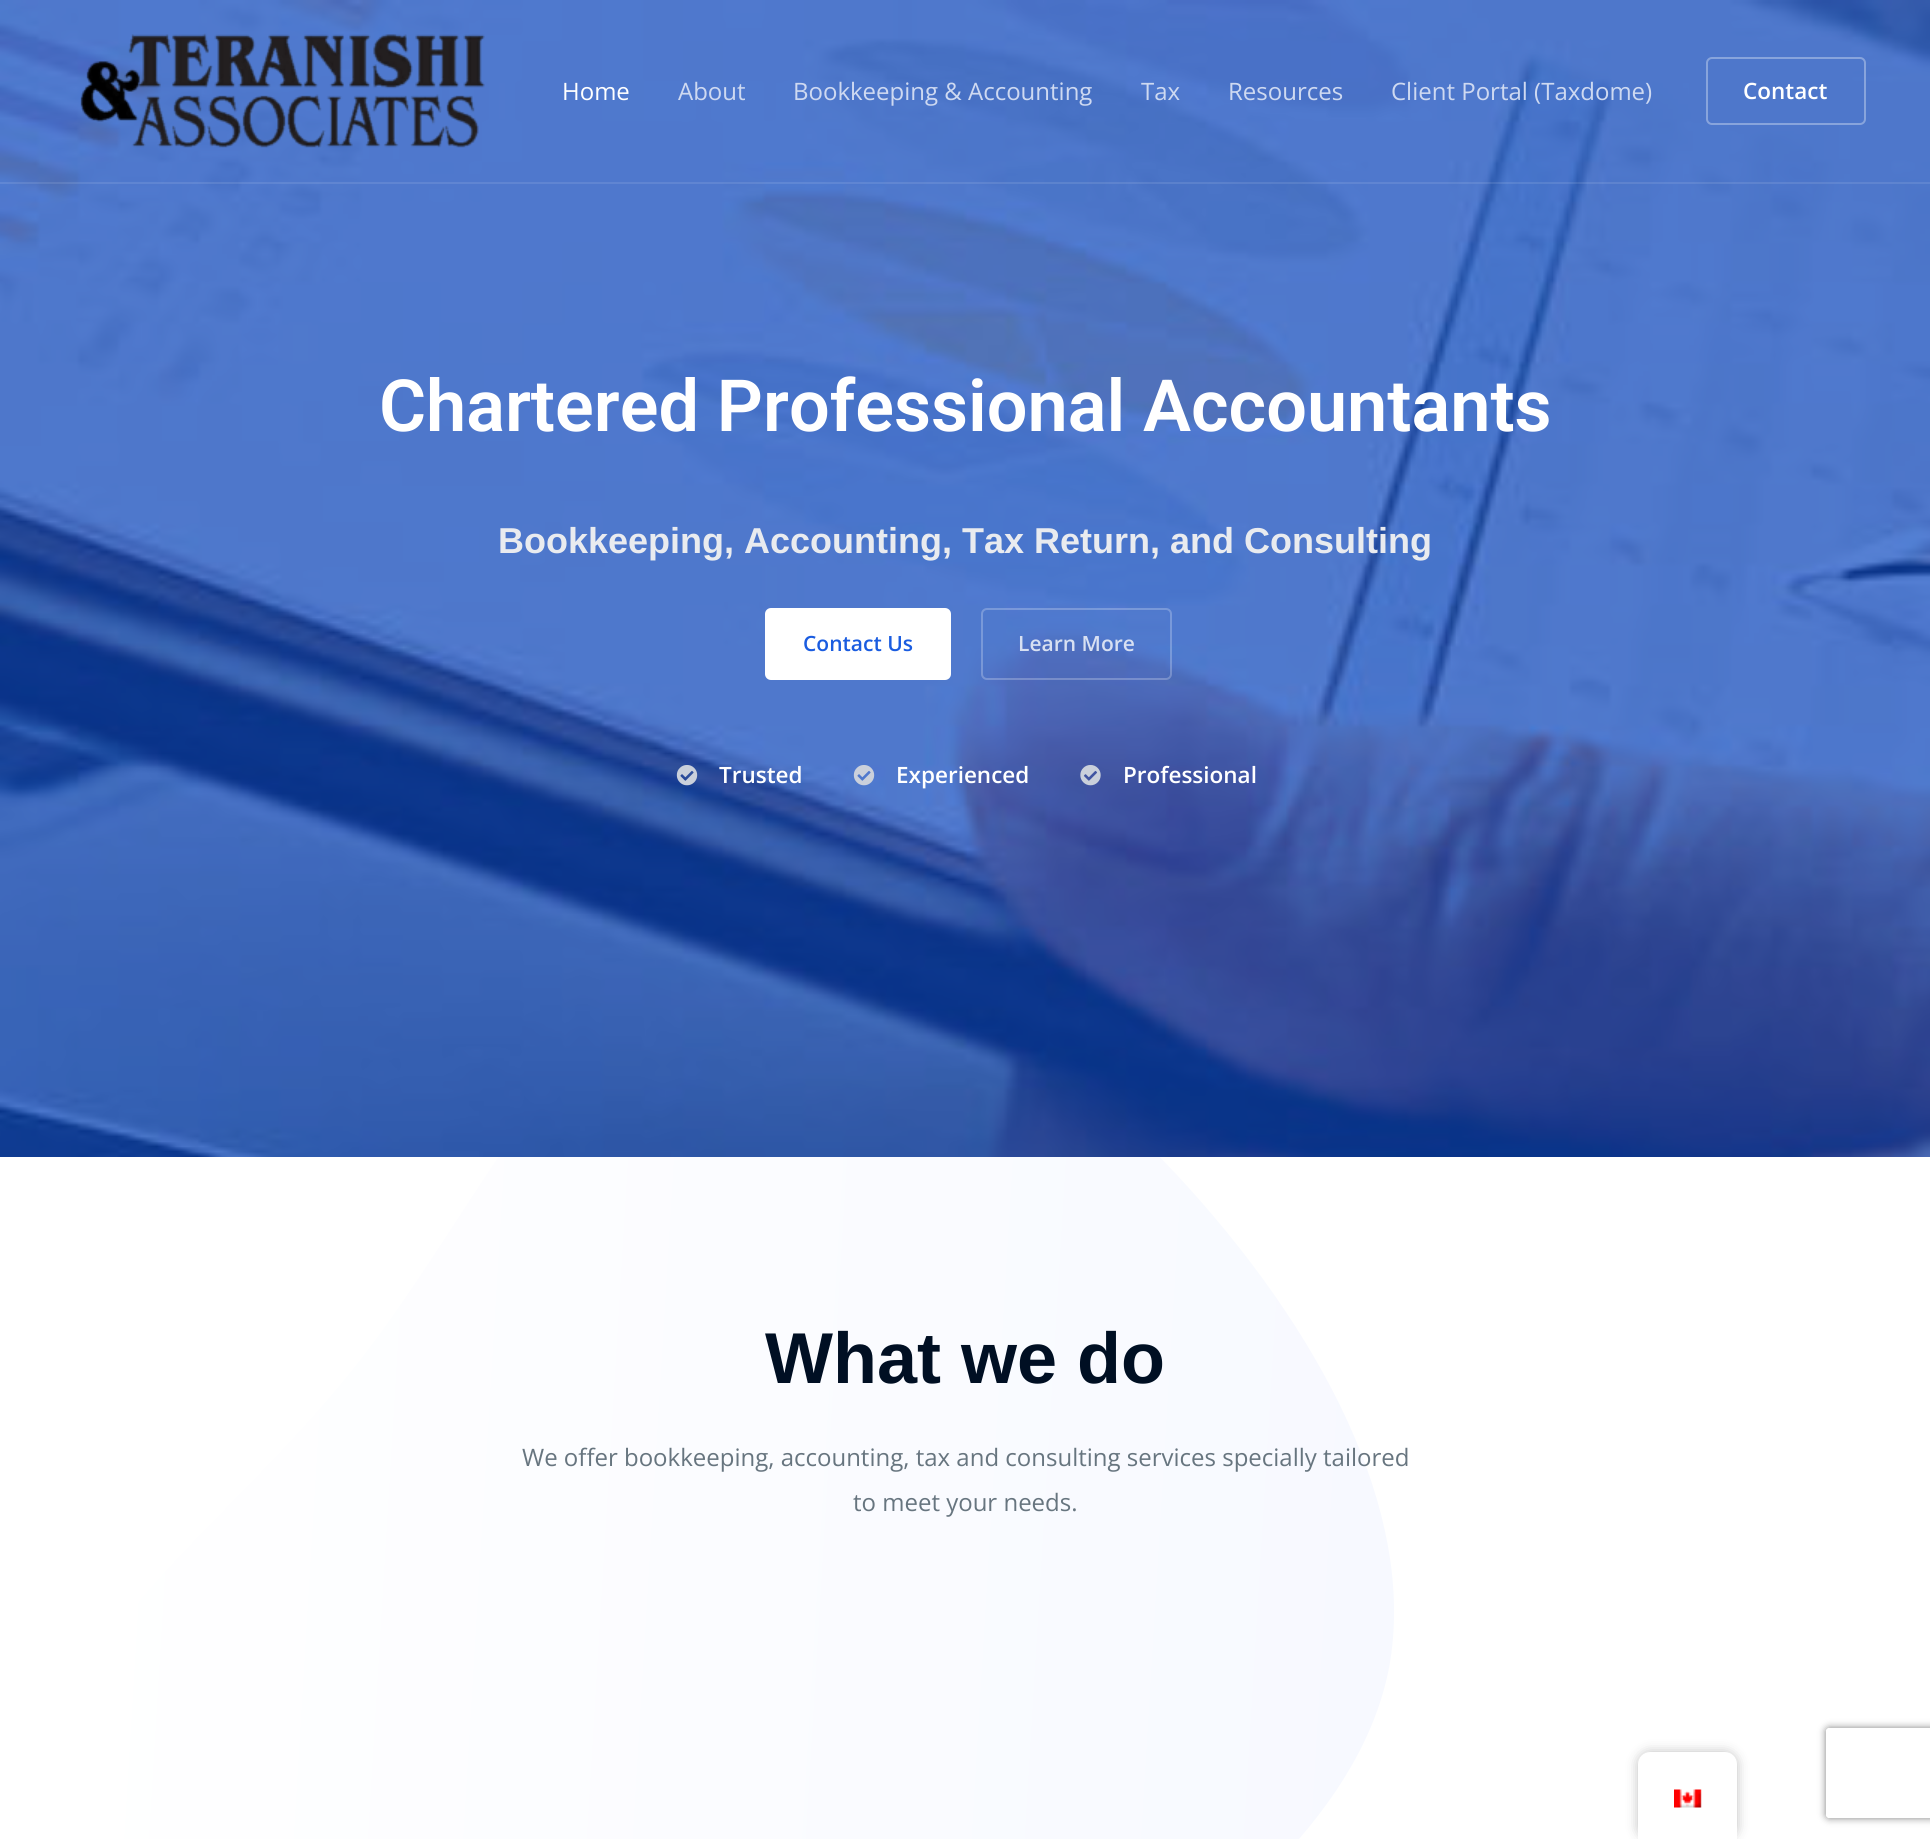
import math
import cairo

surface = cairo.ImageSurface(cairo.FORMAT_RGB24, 1930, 1839)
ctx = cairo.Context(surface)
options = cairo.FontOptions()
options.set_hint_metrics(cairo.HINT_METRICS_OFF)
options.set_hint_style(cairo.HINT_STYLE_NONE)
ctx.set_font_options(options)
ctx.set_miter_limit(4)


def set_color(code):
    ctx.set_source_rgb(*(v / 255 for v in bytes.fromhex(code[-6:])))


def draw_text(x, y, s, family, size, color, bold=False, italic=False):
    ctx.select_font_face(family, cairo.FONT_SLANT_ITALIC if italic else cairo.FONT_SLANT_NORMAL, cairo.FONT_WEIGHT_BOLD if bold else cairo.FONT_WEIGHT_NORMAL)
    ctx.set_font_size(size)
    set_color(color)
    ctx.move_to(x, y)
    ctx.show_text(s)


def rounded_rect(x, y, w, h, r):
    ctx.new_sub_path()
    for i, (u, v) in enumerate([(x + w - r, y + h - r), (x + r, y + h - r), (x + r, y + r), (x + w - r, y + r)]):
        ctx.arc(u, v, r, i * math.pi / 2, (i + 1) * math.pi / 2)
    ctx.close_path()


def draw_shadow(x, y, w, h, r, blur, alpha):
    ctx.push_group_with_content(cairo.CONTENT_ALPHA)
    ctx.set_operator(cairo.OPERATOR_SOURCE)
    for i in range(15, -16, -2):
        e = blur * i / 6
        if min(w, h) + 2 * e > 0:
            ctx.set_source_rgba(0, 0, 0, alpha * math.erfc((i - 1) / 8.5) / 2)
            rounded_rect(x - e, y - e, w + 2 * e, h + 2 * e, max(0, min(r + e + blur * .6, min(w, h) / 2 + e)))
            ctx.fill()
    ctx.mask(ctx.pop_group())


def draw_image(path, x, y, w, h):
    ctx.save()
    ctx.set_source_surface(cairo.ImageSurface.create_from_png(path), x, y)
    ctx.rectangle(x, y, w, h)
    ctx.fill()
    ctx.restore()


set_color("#ffffff")
ctx.paint()
draw_image("assets/img2.png", 0, 0, 1930, 1157)
ctx.set_source_rgba(1, 1, 1, 0.1)
ctx.rectangle(0, 182, 1930, 2)
ctx.fill()
draw_image("assets/img1.png", 80, 33, 405, 115)
draw_text(562, 100, "Home", "Open Sans", 24, "#ffffff")
draw_text(678, 100, "About", "Open Sans", 24, "#ced9f1")
draw_text(793, 100, "Bookkeeping & Accounting", "Open Sans", 24, "#ced9f1")
draw_text(1141, 100, "Tax", "Open Sans", 24, "#ced9f1")
draw_text(1228, 100, "Resources", "Open Sans", 24, "#ced9f1")
draw_text(1391, 100, "Client Portal (Taxdome)", "Open Sans", 24, "#ced9f1")
rounded_rect(1707, 58, 158, 66, 5)
set_color("#88a4dc")
ctx.stroke()
draw_text(1743, 99, "Contact", "Open Sans SemiBold", 22.5, "#ffffff")
draw_text(379, 431, "Chartered Professional Accountants", "Roboto SemiBold", 72, "#ffffff")
draw_text(498, 553, "Bookkeeping, Accounting, Tax Return, and Consulting", "Liberation Sans", 36, "#e9ebef", bold=True)
set_color("#ffffff")
rounded_rect(766, 609, 184, 70, 5)
ctx.fill_preserve()
ctx.stroke()
draw_text(803, 651, "Contact Us", "Open Sans SemiBold", 21, "#1a5ce0")
rounded_rect(982, 609, 189, 70, 5)
ctx.set_source_rgba(1, 1, 1, 0.24)
ctx.stroke()
draw_text(1018, 651, "Learn More", "Open Sans SemiBold", 21, "#d8e0f2")
draw_image("assets/img3.png", 676, 765, 22, 21)
draw_text(719, 783, "Trusted", "Open Sans SemiBold", 22.5, "#ffffff")
draw_image("assets/img4.png", 853, 765, 22, 21)
draw_text(896, 783, "Experienced", "Open Sans SemiBold", 22.5, "#ffffff")
draw_image("assets/img5.png", 1080, 765, 21, 21)
draw_text(1123, 783, "Professional", "Open Sans SemiBold", 22.5, "#ffffff")
ctx.save()
ctx.rectangle(0, 1157, 1467, 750)
ctx.clip()
gradient = cairo.LinearGradient(59, 1517, 1394, 1598)
gradient.add_color_stop_rgba(0, 1, 1, 1, 1)
gradient.add_color_stop_rgba(1, 0.969, 0.976, 1, 1)
ctx.set_source(gradient)
ctx.new_path()
ctx.move_to(1177, 1175)
ctx.curve_to(1319, 1328, 1418, 1512, 1389, 1668)
ctx.curve_to(1359, 1822, 1199, 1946, 1056, 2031)
ctx.curve_to(914, 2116, 790, 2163, 649, 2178)
ctx.curve_to(508, 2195, 351, 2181, 233, 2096)
ctx.curve_to(115, 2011, 34, 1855, 66, 1730)
ctx.curve_to(98, 1605, 242, 1511, 361, 1359)
ctx.curve_to(479, 1206, 573, 993, 711, 948)
ctx.curve_to(850, 902, 1034, 1023, 1177, 1175)
ctx.close_path()
ctx.fill()
ctx.restore()
draw_text(765, 1383, "What we do", "Liberation Sans", 72, "#000f23", bold=True)
draw_text(522, 1466, "We offer bookkeeping, accounting, tax and consulting services specially tailored", "Open Sans", 24, "#67757f")
draw_text(853, 1511, "to meet your needs.", "Open Sans", 24, "#67757f")
set_color("#000000")
draw_shadow(1638, 1752, 99, 87, 12, 6, 0.25)
set_color("#ffffff")
ctx.new_path()
ctx.move_to(1650, 1752)
ctx.line_to(1725, 1752)
ctx.curve_to(1731.5, 1752, 1737, 1757.5, 1737, 1764)
ctx.line_to(1737, 1839)
ctx.line_to(1638, 1839)
ctx.line_to(1638, 1764)
ctx.curve_to(1638, 1757.5, 1643.5, 1752, 1650, 1752)
ctx.close_path()
ctx.fill()
draw_image("assets/img6.png", 1674, 1789, 28, 19)
ctx.save()
ctx.set_fill_rule(cairo.FILL_RULE_EVEN_ODD)
ctx.new_path()
ctx.move_to(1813, 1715)
ctx.line_to(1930, 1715)
ctx.line_to(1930, 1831)
ctx.line_to(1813, 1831)
ctx.close_path()
ctx.move_to(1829, 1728)
ctx.line_to(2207, 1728)
ctx.curve_to(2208.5, 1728, 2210, 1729.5, 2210, 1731)
ctx.line_to(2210, 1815)
ctx.curve_to(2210, 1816.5, 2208.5, 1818, 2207, 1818)
ctx.line_to(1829, 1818)
ctx.curve_to(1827.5, 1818, 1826, 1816.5, 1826, 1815)
ctx.line_to(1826, 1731)
ctx.curve_to(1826, 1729.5, 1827.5, 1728, 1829, 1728)
ctx.close_path()
ctx.clip()
set_color("#808080")
draw_shadow(1826, 1728, 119, 90, 3, 4, 1)
ctx.restore()
surface.write_to_png("output.png")
